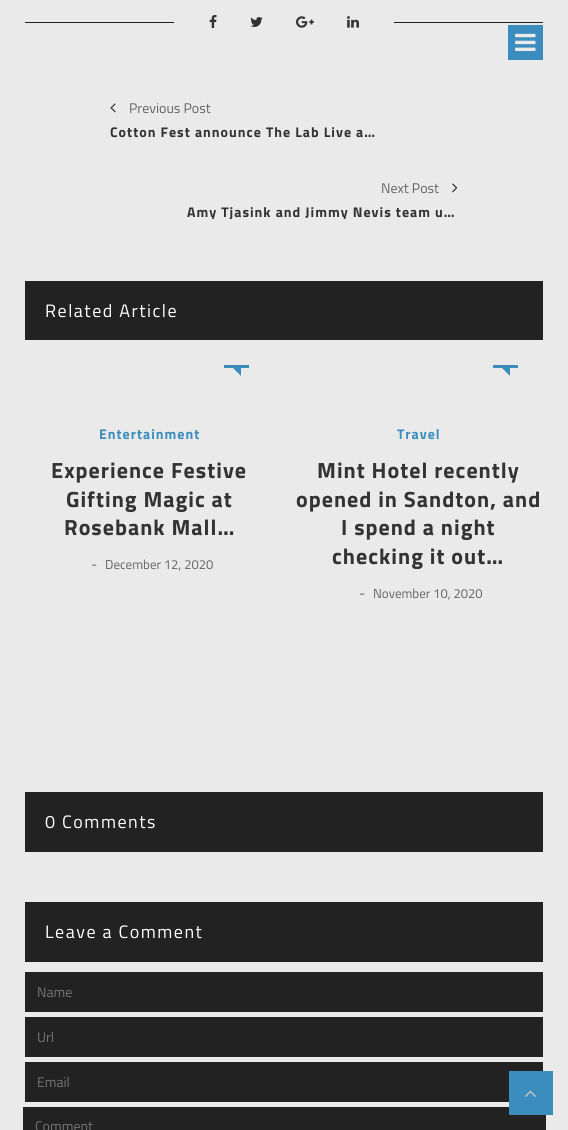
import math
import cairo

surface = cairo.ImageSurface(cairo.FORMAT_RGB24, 568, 1130)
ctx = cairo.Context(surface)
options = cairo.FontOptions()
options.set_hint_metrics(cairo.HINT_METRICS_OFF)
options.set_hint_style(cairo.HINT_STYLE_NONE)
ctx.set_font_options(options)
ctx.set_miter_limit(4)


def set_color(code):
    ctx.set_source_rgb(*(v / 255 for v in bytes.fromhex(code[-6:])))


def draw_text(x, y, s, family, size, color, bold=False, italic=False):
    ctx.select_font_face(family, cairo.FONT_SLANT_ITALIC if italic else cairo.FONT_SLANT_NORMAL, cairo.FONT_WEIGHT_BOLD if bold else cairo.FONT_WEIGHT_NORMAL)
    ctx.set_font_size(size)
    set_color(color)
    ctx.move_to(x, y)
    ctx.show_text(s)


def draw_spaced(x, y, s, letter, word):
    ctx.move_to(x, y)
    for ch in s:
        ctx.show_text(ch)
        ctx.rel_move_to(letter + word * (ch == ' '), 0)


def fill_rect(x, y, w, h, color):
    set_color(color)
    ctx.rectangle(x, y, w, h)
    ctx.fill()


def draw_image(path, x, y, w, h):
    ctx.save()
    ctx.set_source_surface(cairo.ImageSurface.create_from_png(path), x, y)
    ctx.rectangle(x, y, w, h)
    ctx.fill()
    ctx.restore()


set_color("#eaeaea")
ctx.paint()
fill_rect(508, 25, 35, 35, "#3b8dbd")
draw_image("assets/img1.png", 515, 33, 21, 18)
fill_rect(25, 22, 149, 1, "#222222")
draw_image("assets/img2.png", 209, 15, 8, 13)
draw_image("assets/img3.png", 250, 17, 13, 10)
draw_image("assets/img4.png", 296, 16, 18, 12)
draw_image("assets/img5.png", 347, 16, 12, 12)
fill_rect(394, 22, 149, 1, "#222222")
draw_image("assets/img6.png", 110, 103, 6, 10)
draw_text(129, 113, "Previous Post", "Titillium Web", 14, "#646464")
ctx.select_font_face("Titillium Web", cairo.FONT_SLANT_NORMAL, cairo.FONT_WEIGHT_BOLD)
set_color("#333333")
draw_spaced(110, 137, "Cotton Fest announce The Lab Live a…", 1, 0)
draw_text(381, 193, "Next Post", "Titillium Web", 14, "#646464")
draw_image("assets/img7.png", 452, 183, 6, 10)
ctx.save()
ctx.rectangle(167, 205, 291, 14)
ctx.clip()
ctx.select_font_face("Titillium Web", cairo.FONT_SLANT_NORMAL, cairo.FONT_WEIGHT_BOLD)
set_color("#333333")
draw_spaced(187, 217, "Amy Tjasink and Jimmy Nevis team u…", 1, 0)
ctx.restore()
fill_rect(25, 281, 518, 59, "#222222")
ctx.set_font_size(18)
set_color("#ffffff")
draw_spaced(45, 317, "Related Article", 1.5, 0)
fill_rect(224, 365, 25, 3, "#3b8dbd")
ctx.new_path()
ctx.move_to(233, 368)
ctx.line_to(241, 368)
ctx.line_to(241, 376)
ctx.close_path()
ctx.fill()
ctx.select_font_face("Titillium Web", cairo.FONT_SLANT_NORMAL, cairo.FONT_WEIGHT_BOLD)
ctx.set_font_size(14)
draw_spaced(99, 439, "Entertainment", 1, 0)
ctx.set_font_size(22)
set_color("#333333")
draw_spaced(51, 478, "Experience Festive", 1, 0)
draw_spaced(66, 507, "Gifting Magic at", 1, 0)
draw_spaced(64, 535, "Rosebank Mall…", 1, 0)
draw_text(91, 569, "-", "Titillium Web", 14, "#646464")
draw_text(105, 569, "December 12, 2020", "Titillium Web", 13, "#646464")
fill_rect(493, 365, 25, 3, "#3b8dbd")
ctx.new_path()
ctx.move_to(502, 368)
ctx.line_to(510, 368)
ctx.line_to(510, 376)
ctx.close_path()
ctx.fill()
ctx.select_font_face("Titillium Web", cairo.FONT_SLANT_NORMAL, cairo.FONT_WEIGHT_BOLD)
ctx.set_font_size(14)
draw_spaced(397, 439, "Travel", 1, 0)
ctx.set_font_size(22)
set_color("#333333")
draw_spaced(317, 478, "Mint Hotel recently", 1, 0)
draw_spaced(296, 507, "opened in Sandton, and", 1, 0)
draw_spaced(341, 535, "I spend a night", 1, 0)
draw_spaced(332, 564, "checking it out…", 1, 0)
draw_text(359, 598, "-", "Titillium Web", 14, "#646464")
draw_text(373, 598, "November 10, 2020", "Titillium Web", 13, "#646464")
fill_rect(25, 792, 518, 60, "#222222")
ctx.set_font_size(18)
set_color("#ffffff")
draw_spaced(45, 828, "0 Comments", 1.5, 0)
fill_rect(25, 902, 518, 60, "#222222")
set_color("#ffffff")
draw_spaced(45, 938, "Leave a Comment", 1.5, 0)
fill_rect(25, 972, 518, 40, "#222222")
draw_text(37, 997, "Name", "Titillium Web", 14, "#757575")
fill_rect(25, 1017, 518, 40, "#222222")
draw_text(37, 1042, "Url", "Titillium Web", 14, "#757575")
fill_rect(25, 1062, 518, 40, "#222222")
draw_text(37, 1087, "Email", "Titillium Web", 14, "#757575")
fill_rect(23, 1107, 523, 23, "#222222")
draw_text(35, 1131, "Comment", "Titillium Web", 14, "#757575")
fill_rect(509, 1071, 44, 44, "#3b8dbd")
draw_image("assets/img8.png", 524, 1090, 12, 7)
surface.write_to_png("output.png")
